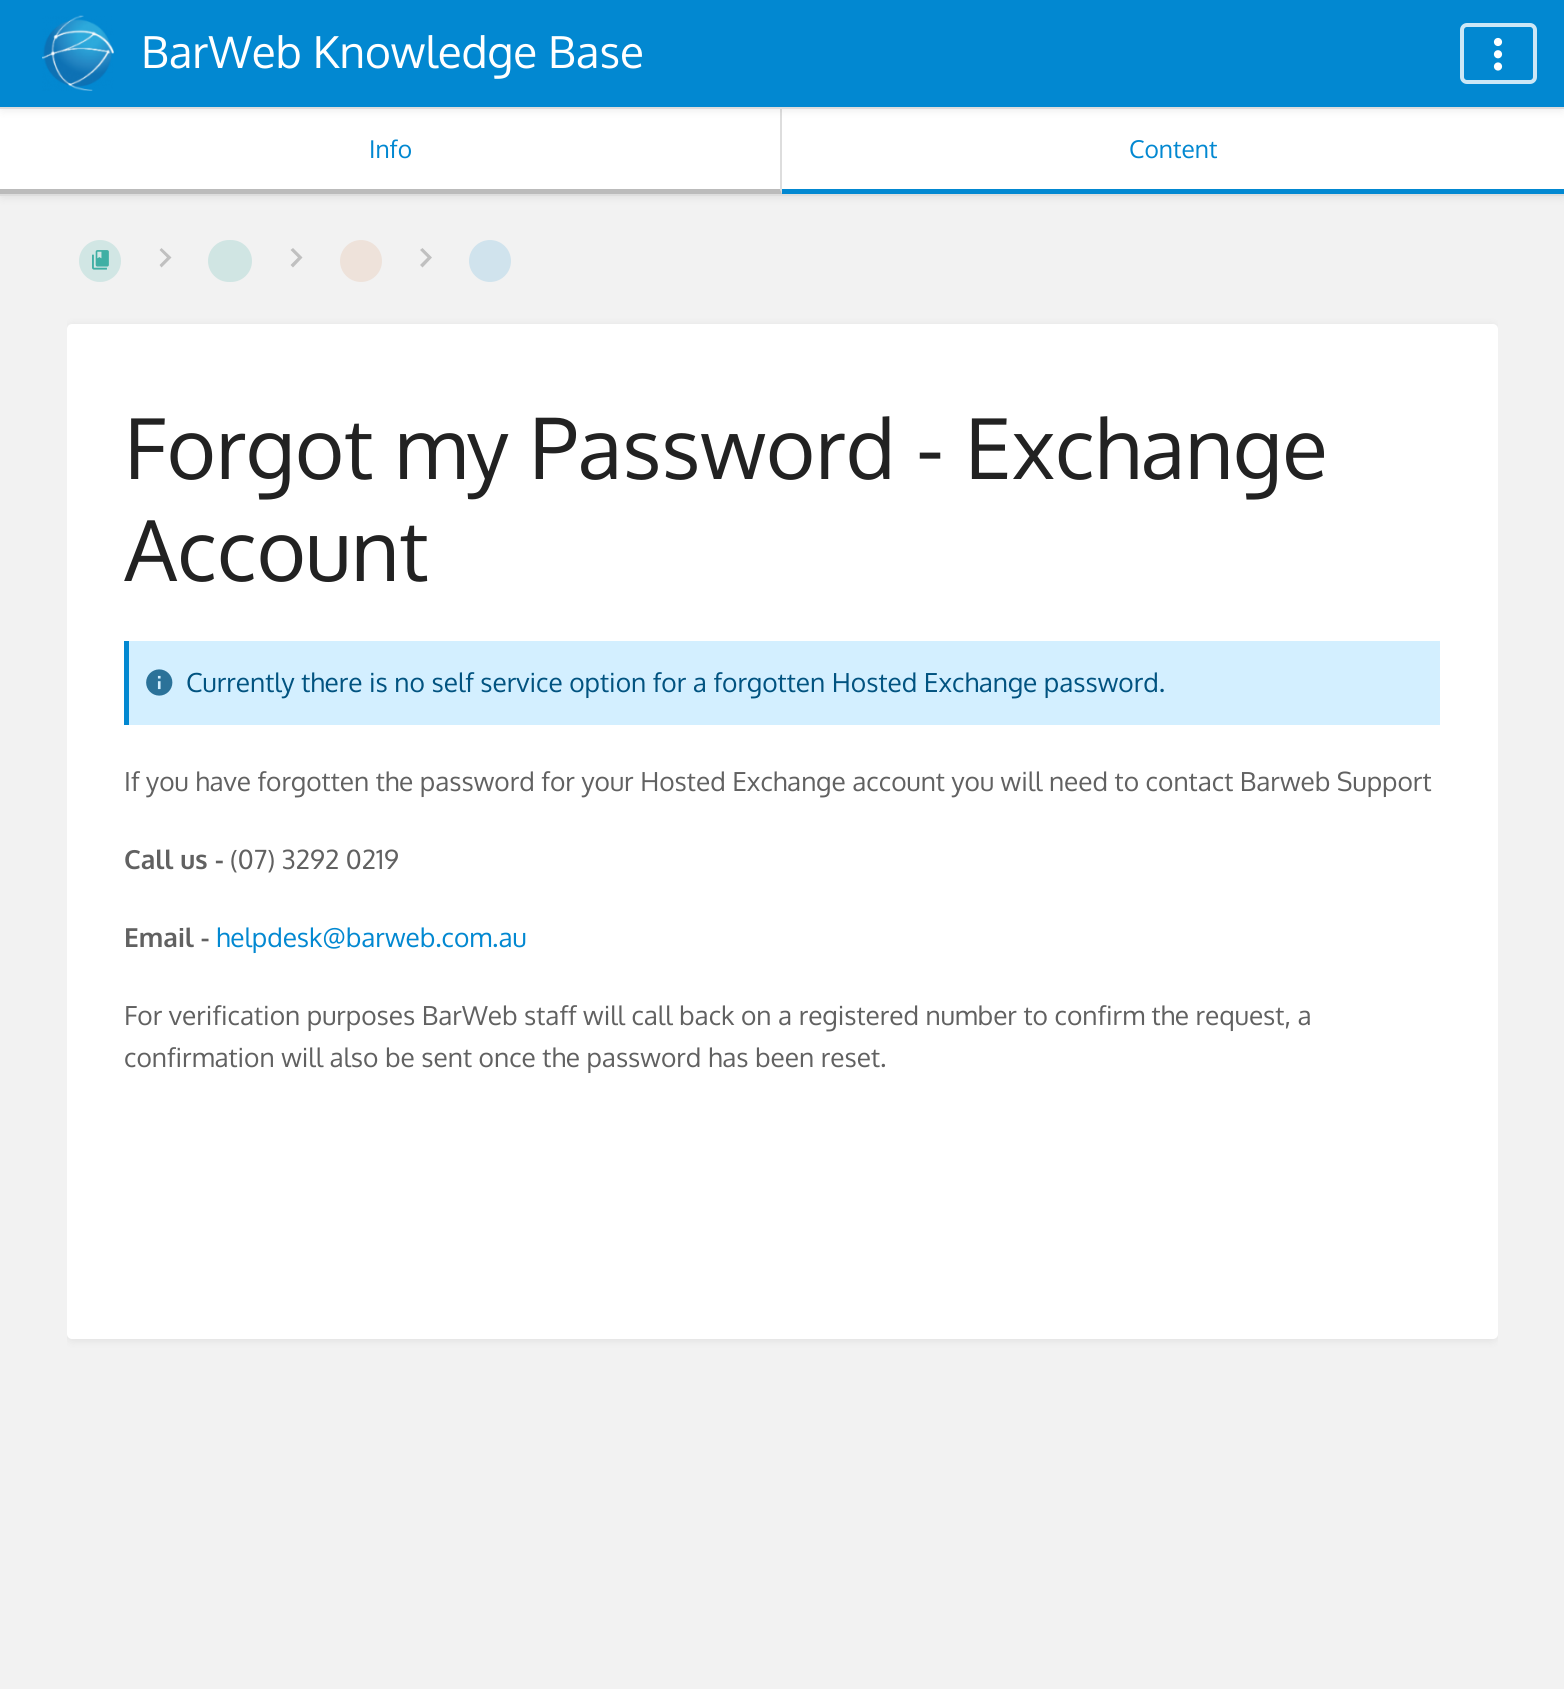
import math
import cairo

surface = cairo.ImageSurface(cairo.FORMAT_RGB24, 1564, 1689)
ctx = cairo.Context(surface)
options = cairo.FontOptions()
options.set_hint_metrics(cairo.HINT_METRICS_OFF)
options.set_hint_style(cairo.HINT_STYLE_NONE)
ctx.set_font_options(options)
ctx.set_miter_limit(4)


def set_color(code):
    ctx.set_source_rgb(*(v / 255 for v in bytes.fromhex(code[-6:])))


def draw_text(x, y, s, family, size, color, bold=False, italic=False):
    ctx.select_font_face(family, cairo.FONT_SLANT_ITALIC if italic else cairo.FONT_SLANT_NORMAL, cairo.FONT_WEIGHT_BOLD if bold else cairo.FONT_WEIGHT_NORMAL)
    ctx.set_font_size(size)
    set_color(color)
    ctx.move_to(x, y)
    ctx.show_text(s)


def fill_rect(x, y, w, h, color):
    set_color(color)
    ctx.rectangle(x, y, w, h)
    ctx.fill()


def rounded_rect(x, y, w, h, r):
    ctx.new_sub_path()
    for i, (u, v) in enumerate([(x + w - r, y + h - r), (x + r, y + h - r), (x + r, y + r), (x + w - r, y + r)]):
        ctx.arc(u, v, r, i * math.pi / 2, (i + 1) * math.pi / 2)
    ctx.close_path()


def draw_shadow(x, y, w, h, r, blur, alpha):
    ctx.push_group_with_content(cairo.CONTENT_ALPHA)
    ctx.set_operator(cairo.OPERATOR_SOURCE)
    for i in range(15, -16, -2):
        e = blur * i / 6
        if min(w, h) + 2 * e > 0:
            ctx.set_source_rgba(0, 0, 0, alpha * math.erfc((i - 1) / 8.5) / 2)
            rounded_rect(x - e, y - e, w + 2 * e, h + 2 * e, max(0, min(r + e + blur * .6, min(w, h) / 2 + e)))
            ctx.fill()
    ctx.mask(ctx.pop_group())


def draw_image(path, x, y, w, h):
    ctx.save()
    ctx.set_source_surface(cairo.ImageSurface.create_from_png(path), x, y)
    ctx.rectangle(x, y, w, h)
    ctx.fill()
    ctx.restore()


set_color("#f2f2f2")
ctx.paint()
set_color("#000000")
draw_shadow(2, 112, 1561, 84, 0, 5, 0.1)
fill_rect(0, 109, 1564, 85, "#ffffff")
set_color("#dddddd")
ctx.new_path()
ctx.move_to(782, 108)
ctx.line_to(782, 194)
ctx.line_to(780, 189)
ctx.line_to(780, 108)
ctx.close_path()
ctx.fill()
set_color("#000000")
draw_shadow(2, 4, 1561, 105, 0, 5, 0.1)
fill_rect(0, 0, 1564, 107, "#0288d1")
fill_rect(0, 107, 1564, 2, "#dddddd")
draw_image("assets/img1.png", 42, 15, 72, 76)
draw_text(141, 68, "BarWeb Knowledge Base", "Oxygen", 44.1, "#ffffff")
rounded_rect(1462, 25, 73, 57, 5)
set_color("#cce7f6")
ctx.set_line_width(4)
ctx.stroke()
draw_image("assets/img2.png", 1493, 37, 10, 34)
fill_rect(0, 194, 1564, 2, "#dddddd")
set_color("#bbbbbb")
ctx.new_path()
ctx.move_to(782, 194)
ctx.line_to(0, 194)
ctx.line_to(0, 189)
ctx.line_to(780, 189)
ctx.close_path()
ctx.fill()
draw_text(369, 158, "Info", "Oxygen", 24.5, "#0288d1")
fill_rect(782, 189, 782, 5, "#0288d1")
draw_text(1129, 158, "Content", "Oxygen", 24.5, "#0288d1")
draw_image("assets/img3.png", 92, 250, 17, 20)
ctx.set_source_rgba(0, 0.588, 0.533, 0.14)
ctx.arc(100, 261, 21, 0, 2 * math.pi)
ctx.fill()
set_color("#c0c0c0")
ctx.new_path()
ctx.move_to(161.5, 248)
ctx.line_to(159.5, 250)
ctx.line_to(167, 257.5)
ctx.line_to(159.5, 265)
ctx.line_to(161.5, 267.5)
ctx.line_to(171.5, 257.5)
ctx.close_path()
ctx.fill()
set_color("#d0e5e3")
rounded_rect(208, 240, 44, 42, 21)
ctx.fill()
set_color("#c0c0c0")
ctx.new_path()
ctx.move_to(293, 248)
ctx.line_to(290.5, 250)
ctx.line_to(298, 257.5)
ctx.line_to(290.5, 265)
ctx.line_to(293, 267.5)
ctx.line_to(302.5, 257.5)
ctx.close_path()
ctx.fill()
set_color("#eee2da")
ctx.arc(361, 261, 21, 0, 2 * math.pi)
ctx.fill()
set_color("#c0c0c0")
ctx.new_path()
ctx.move_to(422.5, 248)
ctx.line_to(420, 250)
ctx.line_to(427.5, 257.5)
ctx.line_to(420, 265)
ctx.line_to(422.5, 267.5)
ctx.line_to(432, 257.5)
ctx.close_path()
ctx.fill()
set_color("#d0e3ed")
ctx.arc(490, 261, 21, 0, 2 * math.pi)
ctx.fill()
ctx.save()
ctx.rectangle(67, 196, 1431, 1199)
ctx.clip()
set_color("#000000")
draw_shadow(68, 327, 1428, 1012, 4, 5, 0.1)
ctx.restore()
set_color("#ffffff")
rounded_rect(67, 324, 1431, 1015, 5)
ctx.fill()
draw_text(124, 479, "Forgot my Password - Exchange", "Oxygen", 83.9, "#222222")
draw_text(124, 581, "Account", "Oxygen", 83.9, "#222222")
fill_rect(129, 641, 1311, 84, "#d3efff")
fill_rect(124, 641, 5, 84, "#0288d1")
draw_image("assets/img4.png", 146, 669, 27, 27)
draw_text(186, 692, "Currently there is no self service option for a forgotten Hosted Exchange password.", "Oxygen", 26.25, "#015380")
draw_text(124, 791, "If you have forgotten the password for your Hosted Exchange account you will need to contact Barweb Support", "Oxygen", 26.25, "#616161")
draw_text(124, 869, "Call us", "Oxygen", 26.25, "#616161", bold=True)
draw_text(215, 869, "-", "Oxygen", 26.25, "#616161", bold=True)
draw_text(230, 869, "(07) 3292 0219", "Oxygen", 26.25, "#616161")
draw_text(124, 947, "Email -", "Oxygen", 26.25, "#616161", bold=True)
draw_text(216, 947, "helpdesk@barweb.com.au", "Oxygen", 26.25, "#0288d1")
draw_text(124, 1025, "For verification purposes BarWeb staff will call back on a registered number to confirm the request, a", "Oxygen", 26.25, "#616161")
draw_text(124, 1067, "confirmation will also be sent once the password has been reset.", "Oxygen", 26.25, "#616161")
surface.write_to_png("output.png")
